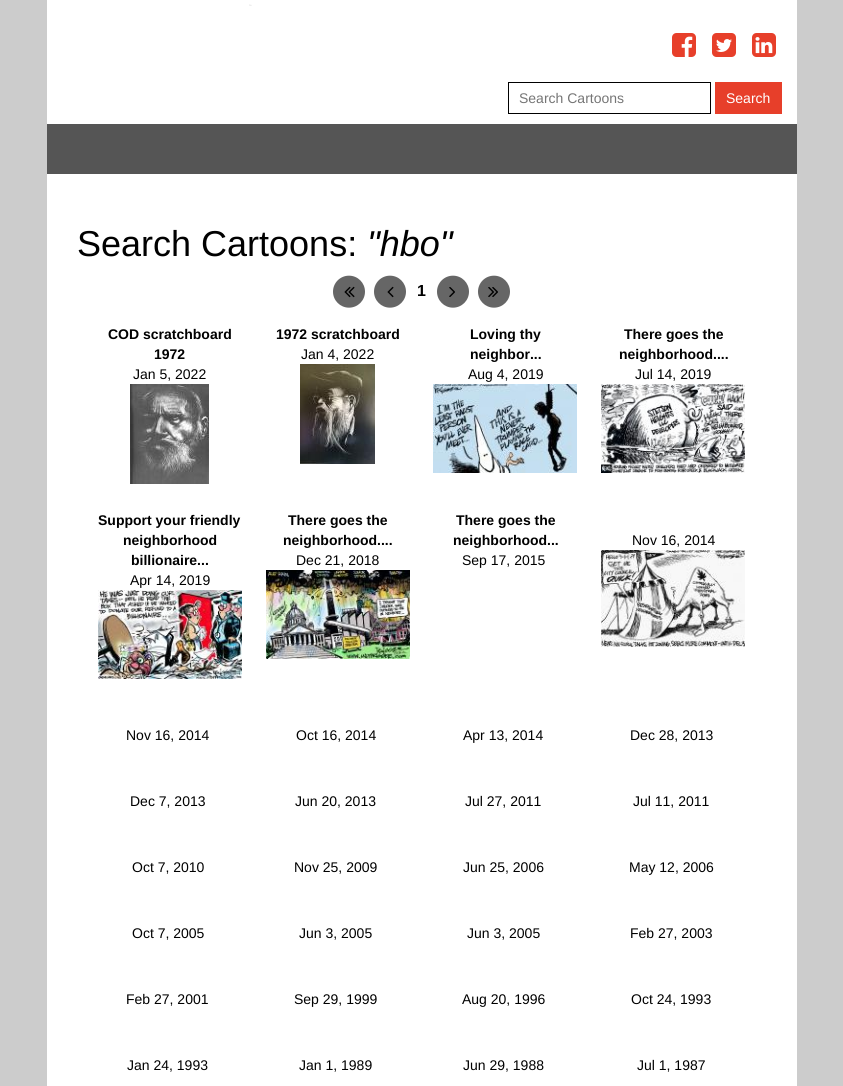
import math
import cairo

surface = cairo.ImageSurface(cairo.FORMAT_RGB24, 843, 1086)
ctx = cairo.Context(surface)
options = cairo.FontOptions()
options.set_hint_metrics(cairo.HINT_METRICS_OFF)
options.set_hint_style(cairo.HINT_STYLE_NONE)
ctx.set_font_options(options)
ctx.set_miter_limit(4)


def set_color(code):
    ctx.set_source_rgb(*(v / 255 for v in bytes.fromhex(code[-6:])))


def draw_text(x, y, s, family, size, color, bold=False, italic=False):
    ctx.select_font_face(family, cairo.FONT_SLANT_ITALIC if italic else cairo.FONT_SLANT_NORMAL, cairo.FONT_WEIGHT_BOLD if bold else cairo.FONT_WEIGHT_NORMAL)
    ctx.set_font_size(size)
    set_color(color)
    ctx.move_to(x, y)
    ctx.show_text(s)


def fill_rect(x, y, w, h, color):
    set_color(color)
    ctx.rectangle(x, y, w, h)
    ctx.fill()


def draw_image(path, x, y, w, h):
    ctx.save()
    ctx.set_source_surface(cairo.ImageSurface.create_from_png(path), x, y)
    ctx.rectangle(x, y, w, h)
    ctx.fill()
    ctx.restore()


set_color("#cccccc")
ctx.paint()
fill_rect(47, 0, 750, 1086, "#ffffff")
draw_image("assets/img1.png", 249, 4, 3, 2)
draw_image("assets/img2.png", 672, 33, 24, 24)
draw_image("assets/img3.png", 712, 33, 24, 24)
draw_image("assets/img4.png", 752, 33, 24, 24)
ctx.rectangle(508.5, 82.5, 202, 31)
set_color("#000000")
ctx.set_line_width(1)
ctx.stroke()
draw_text(519, 103, "Search Cartoons", "Liberation Sans", 14, "#757575")
fill_rect(715, 82, 67, 32, "#e73f2a")
draw_text(726, 103, "Search", "Liberation Sans", 14, "#ffffff")
fill_rect(47, 124, 750, 50, "#555555")
draw_text(77, 256, "Search Cartoons:", "Liberation Sans", 36, "#000000")
draw_text(367, 256, "\"hbo\"", "Liberation Sans", 36, "#000000", italic=True)
draw_image("assets/img5.png", 333, 275, 32, 33)
draw_image("assets/img6.png", 344, 286, 11, 12)
draw_image("assets/img5.png", 374, 275, 32, 33)
draw_image("assets/img7.png", 387, 286, 7, 12)
draw_text(417, 296, "1", "Liberation Sans", 16, "#000000", bold=True)
draw_image("assets/img5.png", 437, 275, 32, 33)
draw_image("assets/img8.png", 449, 287, 6, 10)
draw_image("assets/img5.png", 478, 275, 32, 33)
draw_image("assets/img9.png", 488, 287, 10, 10)
draw_text(108, 339, "COD scratchboard", "Liberation Sans", 14, "#000000", bold=True)
draw_text(154, 359, "1972", "Liberation Sans", 14, "#000000", bold=True)
draw_text(133, 379, "Jan 5, 2022", "Liberation Sans", 14, "#000000")
draw_image("assets/img10.png", 130, 384, 79, 100)
draw_text(276, 339, "1972 scratchboard", "Liberation Sans", 14, "#000000", bold=True)
draw_text(301, 359, "Jan 4, 2022", "Liberation Sans", 14, "#000000")
draw_image("assets/img11.png", 300, 364, 75, 100)
draw_text(470, 339, "Loving thy", "Liberation Sans", 14, "#000000", bold=True)
draw_text(470, 359, "neighbor...", "Liberation Sans", 14, "#000000", bold=True)
draw_text(468, 379, "Aug 4, 2019", "Liberation Sans", 14, "#000000")
draw_image("assets/img12.png", 433, 384, 144, 89)
draw_text(624, 339, "There goes the", "Liberation Sans", 14, "#000000", bold=True)
draw_text(619, 359, "neighborhood....", "Liberation Sans", 14, "#000000", bold=True)
draw_text(635, 379, "Jul 14, 2019", "Liberation Sans", 14, "#000000")
draw_image("assets/img13.png", 601, 384, 144, 89)
draw_text(98, 525, "Support your friendly", "Liberation Sans", 14, "#000000", bold=True)
draw_text(123, 545, "neighborhood", "Liberation Sans", 14, "#000000", bold=True)
draw_text(131, 565, "billionaire...", "Liberation Sans", 14, "#000000", bold=True)
draw_text(130, 585, "Apr 14, 2019", "Liberation Sans", 14, "#000000")
draw_image("assets/img14.png", 98, 590, 144, 89)
draw_text(288, 525, "There goes the", "Liberation Sans", 14, "#000000", bold=True)
draw_text(283, 545, "neighborhood....", "Liberation Sans", 14, "#000000", bold=True)
draw_text(296, 565, "Dec 21, 2018", "Liberation Sans", 14, "#000000")
draw_image("assets/img15.png", 266, 570, 144, 89)
draw_text(456, 525, "There goes the", "Liberation Sans", 14, "#000000", bold=True)
draw_text(453, 545, "neighborhood...", "Liberation Sans", 14, "#000000", bold=True)
draw_text(462, 565, "Sep 17, 2015", "Liberation Sans", 14, "#000000")
draw_text(632, 545, "Nov 16, 2014", "Liberation Sans", 14, "#000000")
draw_image("assets/img16.png", 601, 550, 144, 97)
draw_text(126, 740, "Nov 16, 2014", "Liberation Sans", 14, "#000000")
draw_text(296, 740, "Oct 16, 2014", "Liberation Sans", 14, "#000000")
draw_text(463, 740, "Apr 13, 2014", "Liberation Sans", 14, "#000000")
draw_text(630, 740, "Dec 28, 2013", "Liberation Sans", 14, "#000000")
draw_text(130, 806, "Dec 7, 2013", "Liberation Sans", 14, "#000000")
draw_text(295, 806, "Jun 20, 2013", "Liberation Sans", 14, "#000000")
draw_text(465, 806, "Jul 27, 2011", "Liberation Sans", 14, "#000000")
draw_text(633, 806, "Jul 11, 2011", "Liberation Sans", 14, "#000000")
draw_text(132, 872, "Oct 7, 2010", "Liberation Sans", 14, "#000000")
draw_text(294, 872, "Nov 25, 2009", "Liberation Sans", 14, "#000000")
draw_text(463, 872, "Jun 25, 2006", "Liberation Sans", 14, "#000000")
draw_text(629, 872, "May 12, 2006", "Liberation Sans", 14, "#000000")
draw_text(132, 938, "Oct 7, 2005", "Liberation Sans", 14, "#000000")
draw_text(299, 938, "Jun 3, 2005", "Liberation Sans", 14, "#000000")
draw_text(467, 938, "Jun 3, 2005", "Liberation Sans", 14, "#000000")
draw_text(630, 938, "Feb 27, 2003", "Liberation Sans", 14, "#000000")
draw_text(126, 1004, "Feb 27, 2001", "Liberation Sans", 14, "#000000")
draw_text(294, 1004, "Sep 29, 1999", "Liberation Sans", 14, "#000000")
draw_text(462, 1004, "Aug 20, 1996", "Liberation Sans", 14, "#000000")
draw_text(631, 1004, "Oct 24, 1993", "Liberation Sans", 14, "#000000")
draw_text(127, 1070, "Jan 24, 1993", "Liberation Sans", 14, "#000000")
draw_text(299, 1070, "Jan 1, 1989", "Liberation Sans", 14, "#000000")
draw_text(463, 1070, "Jun 29, 1988", "Liberation Sans", 14, "#000000")
draw_text(637, 1070, "Jul 1, 1987", "Liberation Sans", 14, "#000000")
surface.write_to_png("output.png")
